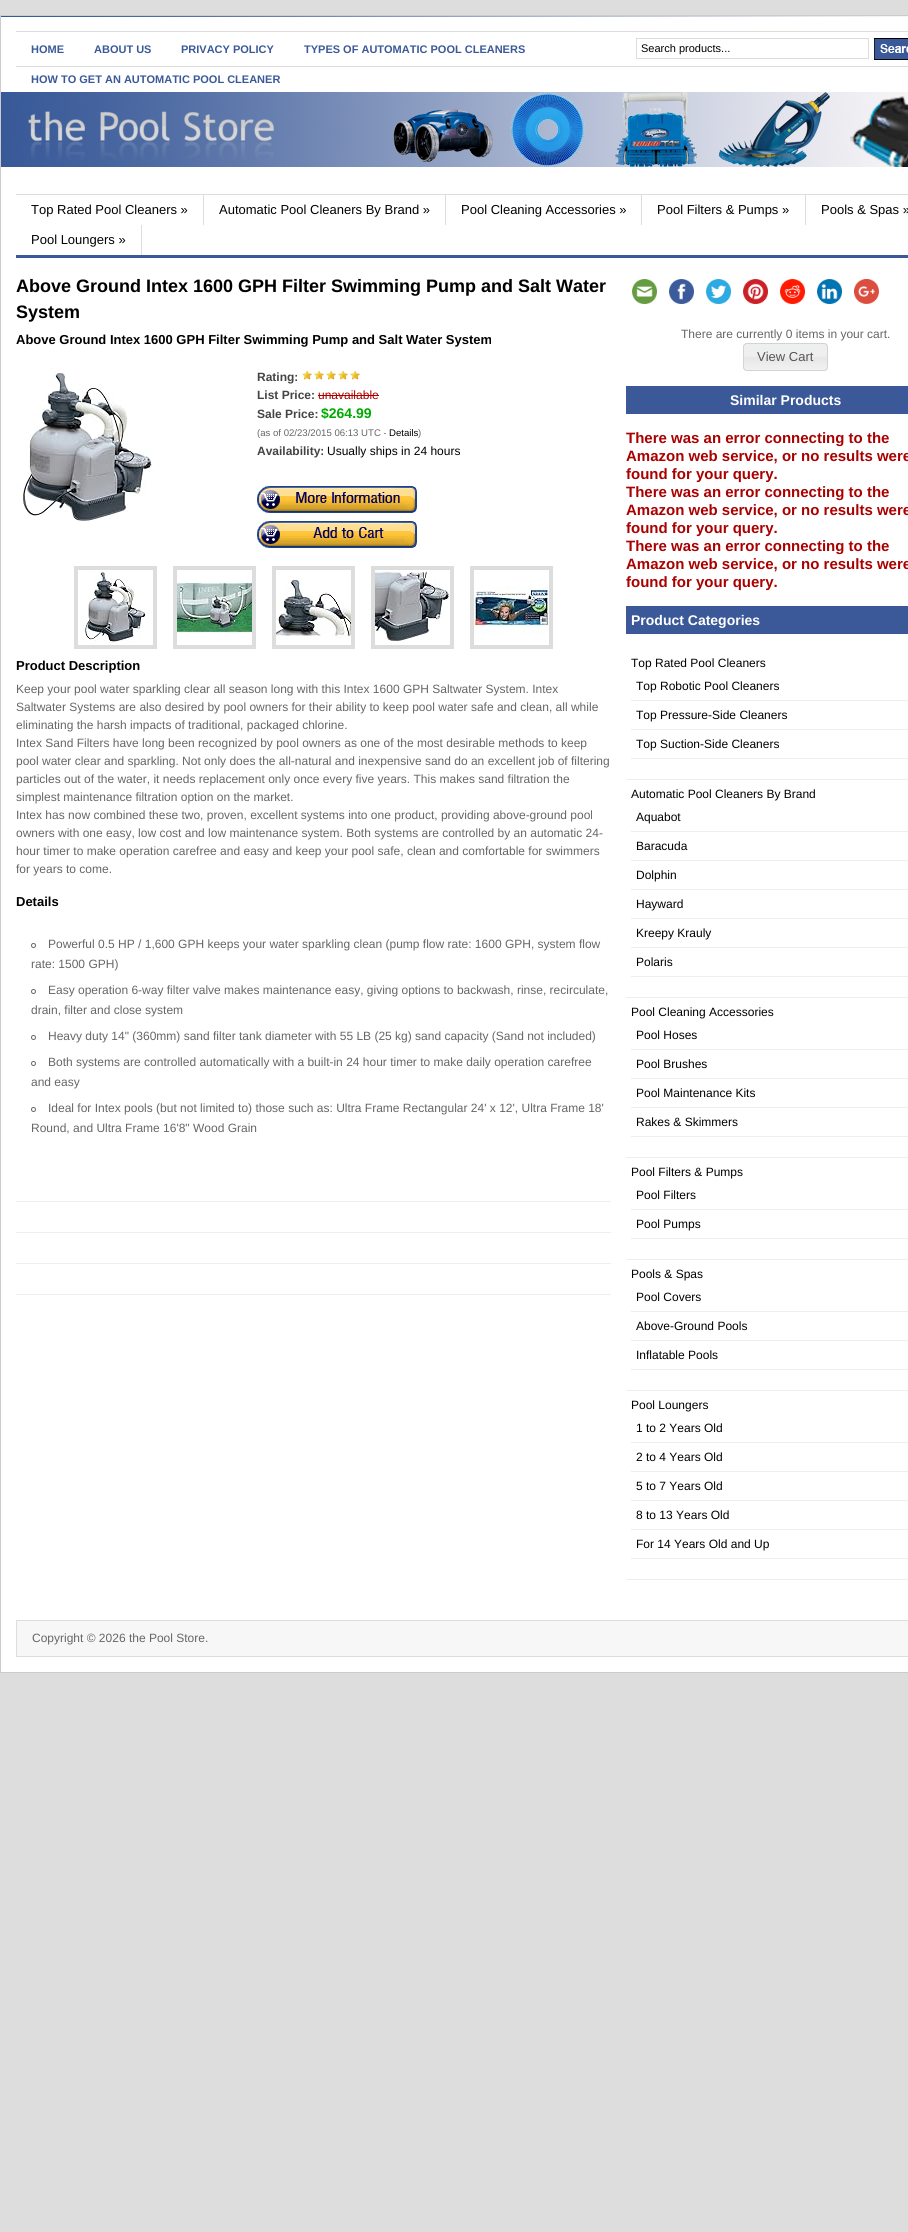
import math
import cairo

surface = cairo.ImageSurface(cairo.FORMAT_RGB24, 908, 2232)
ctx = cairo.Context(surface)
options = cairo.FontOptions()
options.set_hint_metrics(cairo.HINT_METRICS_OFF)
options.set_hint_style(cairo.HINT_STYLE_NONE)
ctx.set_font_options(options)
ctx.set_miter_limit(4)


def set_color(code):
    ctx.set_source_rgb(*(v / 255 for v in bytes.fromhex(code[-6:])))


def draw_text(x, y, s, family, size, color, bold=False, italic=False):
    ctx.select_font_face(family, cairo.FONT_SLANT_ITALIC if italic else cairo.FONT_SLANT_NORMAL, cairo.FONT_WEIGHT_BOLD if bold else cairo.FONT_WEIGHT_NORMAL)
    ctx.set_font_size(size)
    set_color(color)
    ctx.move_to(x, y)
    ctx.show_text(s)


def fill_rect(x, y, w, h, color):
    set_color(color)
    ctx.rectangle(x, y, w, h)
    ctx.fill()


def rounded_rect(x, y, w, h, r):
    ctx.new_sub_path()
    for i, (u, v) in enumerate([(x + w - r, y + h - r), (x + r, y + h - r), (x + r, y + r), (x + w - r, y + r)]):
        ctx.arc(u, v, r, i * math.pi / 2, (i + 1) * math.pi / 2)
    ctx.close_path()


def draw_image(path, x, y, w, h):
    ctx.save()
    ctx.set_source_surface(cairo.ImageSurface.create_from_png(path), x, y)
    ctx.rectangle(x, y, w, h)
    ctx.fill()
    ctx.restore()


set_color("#dddddd")
ctx.paint()
fill_rect(1, 167, 907, 1505, "#ffffff")
draw_image("assets/img1.png", 1, 16, 907, 151)
ctx.rectangle(0.5, 15.5, 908, 1657)
set_color("#cccccc")
ctx.set_line_width(1)
ctx.stroke()
fill_rect(16, 31, 892, 1, "#dddddd")
fill_rect(16, 66, 892, 1, "#dddddd")
draw_text(31, 53, "HOME", "Liberation Sans", 11, "#3b5998", bold=True)
draw_text(94, 53, "ABOUT US", "Liberation Sans", 11, "#3b5998", bold=True)
draw_text(181, 53, "PRIVACY POLICY", "Liberation Sans", 11, "#3b5998", bold=True)
draw_text(304, 53, "TYPES OF AUTOMATIC POOL CLEANERS", "Liberation Sans", 11, "#3b5998", bold=True)
draw_text(31, 83, "HOW TO GET AN AUTOMATIC POOL CLEANER", "Liberation Sans", 11, "#3b5998", bold=True)
ctx.rectangle(636.5, 38.5, 232, 20)
set_color("#dddddd")
ctx.stroke()
draw_text(641, 52, "Search products...", "Liberation Sans", 11, "#000000")
draw_image("assets/img2.png", 874, 38, 34, 22)
fill_rect(16, 194, 892, 1, "#dddddd")
fill_rect(16, 255, 892, 3, "#3b5998")
fill_rect(203, 195, 1, 30, "#dddddd")
draw_text(31, 214, "Top Rated Pool Cleaners »", "Liberation Sans", 13, "#000000")
fill_rect(445, 195, 1, 30, "#dddddd")
draw_text(219, 214, "Automatic Pool Cleaners By Brand »", "Liberation Sans", 13, "#000000")
fill_rect(641, 195, 1, 30, "#dddddd")
draw_text(461, 214, "Pool Cleaning Accessories »", "Liberation Sans", 13, "#000000")
fill_rect(805, 195, 1, 30, "#dddddd")
draw_text(657, 214, "Pool Filters & Pumps »", "Liberation Sans", 13, "#000000")
draw_text(821, 214, "Pools & Spas »", "Liberation Sans", 13, "#000000")
fill_rect(141, 225, 1, 30, "#dddddd")
draw_text(31, 244, "Pool Loungers »", "Liberation Sans", 13, "#000000")
draw_text(16, 292, "Above Ground Intex 1600 GPH Filter Swimming Pump and Salt Water", "Liberation Sans", 18, "#000000", bold=True)
draw_text(16, 318, "System", "Liberation Sans", 18, "#000000", bold=True)
draw_text(16, 344, "Above Ground Intex 1600 GPH Filter Swimming Pump and Salt Water System", "Liberation Sans", 13, "#000000", bold=True)
draw_image("assets/img3.png", 18, 368, 136, 154)
draw_text(257, 381, "Rating:", "Liberation Sans", 12, "#444444", bold=True)
draw_image("assets/img4.png", 302, 370, 58, 10)
draw_text(257, 399, "List Price:", "Liberation Sans", 12, "#444444", bold=True)
draw_text(318, 399, "unavailable", "Liberation Sans", 12, "#aa0000")
fill_rect(318, 395, 61, 1, "#aa0000")
draw_text(257, 418, "Sale Price:", "Liberation Sans", 12, "#444444", bold=True)
draw_text(321, 418, "$264.99", "Liberation Sans", 14, "#00aa00", bold=True)
draw_text(257, 436, "(as of 02/23/2015 06:13 UTC -", "Liberation Sans", 9.6, "#666666")
draw_text(389, 436, "Details", "Liberation Sans", 9.6, "#000000")
draw_text(418, 436, ")", "Liberation Sans", 9.6, "#666666")
draw_text(257, 455, "Availability:", "Liberation Sans", 12, "#444444", bold=True)
draw_text(327, 455, "Usually ships in 24 hours", "Liberation Sans", 12, "#000000")
draw_image("assets/img5.png", 257, 486, 160, 27)
draw_image("assets/img6.png", 257, 521, 160, 27)
ctx.rectangle(76, 568, 79, 79)
set_color("#dddddd")
ctx.set_line_width(4)
ctx.stroke()
ctx.rectangle(175, 568, 79, 79)
ctx.stroke()
ctx.rectangle(274, 568, 79, 79)
ctx.stroke()
ctx.rectangle(373, 568, 79, 79)
ctx.stroke()
ctx.rectangle(472, 568, 79, 79)
ctx.stroke()
draw_image("assets/img7.png", 85, 571, 62, 71)
draw_image("assets/img8.png", 177, 581, 75, 53)
draw_image("assets/img9.png", 276, 578, 75, 60)
draw_image("assets/img10.png", 375, 570, 74, 71)
draw_image("assets/img11.png", 474, 585, 75, 49)
draw_text(16, 670, "Product Description", "Liberation Sans", 13, "#000000", bold=True)
draw_text(16, 693, "Keep your pool water sparkling clear all season long with this Intex 1600 GPH Saltwater System. Intex", "Liberation Sans", 12, "#666666")
draw_text(16, 711, "Saltwater Systems are also desired by pool owners for their ability to keep pool water safe and clean, all while", "Liberation Sans", 12, "#666666")
draw_text(16, 729, "eliminating the harsh impacts of traditional, packaged chlorine.", "Liberation Sans", 12, "#666666")
draw_text(16, 747, "Intex Sand Filters have long been recognized by pool owners as one of the most desirable methods to keep", "Liberation Sans", 12, "#666666")
draw_text(16, 765, "pool water clear and sparkling. Not only does the all-natural and inexpensive sand do an excellent job of filtering", "Liberation Sans", 12, "#666666")
draw_text(16, 783, "particles out of the water, it needs replacement only once every five years. This makes sand filtration the", "Liberation Sans", 12, "#666666")
draw_text(16, 801, "simplest maintenance filtration option on the market.", "Liberation Sans", 12, "#666666")
draw_text(16, 819, "Intex has now combined these two, proven, excellent systems into one product, providing above-ground pool", "Liberation Sans", 12, "#666666")
draw_text(16, 837, "owners with one easy, low cost and low maintenance system. Both systems are controlled by an automatic 24-", "Liberation Sans", 12, "#666666")
draw_text(16, 855, "hour timer to make operation carefree and easy and keep your pool safe, clean and comfortable for swimmers", "Liberation Sans", 12, "#666666")
draw_text(16, 873, "for years to come.", "Liberation Sans", 12, "#666666")
draw_text(16, 906, "Details", "Liberation Sans", 13, "#000000", bold=True)
ctx.new_path()
ctx.arc(33.5, 945.5, 2, 0, 2 * math.pi)
set_color("#666666")
ctx.set_line_width(1)
ctx.stroke()
draw_text(48, 948, "Powerful 0.5 HP / 1,600 GPH keeps your water sparkling clean (pump flow rate: 1600 GPH, system flow", "Liberation Sans", 12, "#666666")
draw_text(31, 968, "rate: 1500 GPH)", "Liberation Sans", 12, "#666666")
ctx.new_path()
ctx.arc(33.5, 991.5, 2, 0, 2 * math.pi)
ctx.stroke()
draw_text(48, 994, "Easy operation 6-way filter valve makes maintenance easy, giving options to backwash, rinse, recirculate,", "Liberation Sans", 12, "#666666")
draw_text(31, 1014, "drain, filter and close system", "Liberation Sans", 12, "#666666")
ctx.new_path()
ctx.arc(33.5, 1037.5, 2, 0, 2 * math.pi)
ctx.stroke()
draw_text(48, 1040, "Heavy duty 14\" (360mm) sand filter tank diameter with 55 LB (25 kg) sand capacity (Sand not included)", "Liberation Sans", 12, "#666666")
ctx.new_path()
ctx.arc(33.5, 1063.5, 2, 0, 2 * math.pi)
ctx.stroke()
draw_text(48, 1066, "Both systems are controlled automatically with a built-in 24 hour timer to make daily operation carefree", "Liberation Sans", 12, "#666666")
draw_text(31, 1086, "and easy", "Liberation Sans", 12, "#666666")
ctx.new_path()
ctx.arc(33.5, 1109.5, 2, 0, 2 * math.pi)
ctx.stroke()
draw_text(48, 1112, "Ideal for Intex pools (but not limited to) those such as: Ultra Frame Rectangular 24' x 12', Ultra Frame 18'", "Liberation Sans", 12, "#666666")
draw_text(31, 1132, "Round, and Ultra Frame 16'8\" Wood Grain", "Liberation Sans", 12, "#666666")
fill_rect(16, 1201, 595, 1, "#eeeeee")
fill_rect(16, 1232, 595, 1, "#eeeeee")
fill_rect(16, 1263, 595, 1, "#eeeeee")
fill_rect(16, 1294, 595, 1, "#eeeeee")
draw_image("assets/img12.png", 632, 279, 25, 25)
draw_image("assets/img13.png", 669, 279, 25, 25)
draw_image("assets/img14.png", 706, 279, 25, 25)
draw_image("assets/img15.png", 743, 279, 25, 25)
draw_image("assets/img16.png", 780, 279, 25, 25)
draw_image("assets/img17.png", 817, 279, 25, 25)
draw_image("assets/img18.png", 854, 279, 25, 25)
draw_text(681, 338, "There are currently 0 items in your cart.", "Liberation Sans", 12, "#666666")
draw_image("assets/img19.png", 743, 343, 85, 28)
rounded_rect(743.5, 343.5, 84, 27, 3.5)
set_color("#d3d3d3")
ctx.stroke()
draw_text(757, 361, "View Cart", "Liberation Sans", 13, "#555555")
fill_rect(626, 386, 282, 28, "#3b5998")
draw_text(730, 405, "Similar Products", "Liberation Sans", 14, "#ffffff", bold=True)
draw_text(626, 443, "There was an error connecting to the", "Liberation Sans", 15, "#aa0000", bold=True)
draw_text(626, 461, "Amazon web service, or no results were", "Liberation Sans", 15, "#aa0000", bold=True)
draw_text(626, 479, "found for your query.", "Liberation Sans", 15, "#aa0000", bold=True)
draw_text(626, 497, "There was an error connecting to the", "Liberation Sans", 15, "#aa0000", bold=True)
draw_text(626, 515, "Amazon web service, or no results were", "Liberation Sans", 15, "#aa0000", bold=True)
draw_text(626, 533, "found for your query.", "Liberation Sans", 15, "#aa0000", bold=True)
draw_text(626, 551, "There was an error connecting to the", "Liberation Sans", 15, "#aa0000", bold=True)
draw_text(626, 569, "Amazon web service, or no results were", "Liberation Sans", 15, "#aa0000", bold=True)
draw_text(626, 587, "found for your query.", "Liberation Sans", 15, "#aa0000", bold=True)
fill_rect(626, 606, 282, 28, "#3b5998")
draw_text(631, 625, "Product Categories", "Liberation Sans", 14, "#ffffff", bold=True)
fill_rect(626, 779, 282, 1, "#eeeeee")
draw_text(631, 667, "Top Rated Pool Cleaners", "Liberation Sans", 12, "#000000")
fill_rect(631, 700, 277, 1, "#eeeeee")
draw_text(636, 690, "Top Robotic Pool Cleaners", "Liberation Sans", 12, "#000000")
fill_rect(631, 729, 277, 1, "#eeeeee")
draw_text(636, 719, "Top Pressure-Side Cleaners", "Liberation Sans", 12, "#000000")
fill_rect(631, 758, 277, 1, "#eeeeee")
draw_text(636, 748, "Top Suction-Side Cleaners", "Liberation Sans", 12, "#000000")
fill_rect(626, 997, 282, 1, "#eeeeee")
draw_text(631, 798, "Automatic Pool Cleaners By Brand", "Liberation Sans", 12, "#000000")
fill_rect(631, 831, 277, 1, "#eeeeee")
draw_text(636, 821, "Aquabot", "Liberation Sans", 12, "#000000")
fill_rect(631, 860, 277, 1, "#eeeeee")
draw_text(636, 850, "Baracuda", "Liberation Sans", 12, "#000000")
fill_rect(631, 889, 277, 1, "#eeeeee")
draw_text(636, 879, "Dolphin", "Liberation Sans", 12, "#000000")
fill_rect(631, 918, 277, 1, "#eeeeee")
draw_text(636, 908, "Hayward", "Liberation Sans", 12, "#000000")
fill_rect(631, 947, 277, 1, "#eeeeee")
draw_text(636, 937, "Kreepy Krauly", "Liberation Sans", 12, "#000000")
fill_rect(631, 976, 277, 1, "#eeeeee")
draw_text(636, 966, "Polaris", "Liberation Sans", 12, "#000000")
fill_rect(626, 1157, 282, 1, "#eeeeee")
draw_text(631, 1016, "Pool Cleaning Accessories", "Liberation Sans", 12, "#000000")
fill_rect(631, 1049, 277, 1, "#eeeeee")
draw_text(636, 1039, "Pool Hoses", "Liberation Sans", 12, "#000000")
fill_rect(631, 1078, 277, 1, "#eeeeee")
draw_text(636, 1068, "Pool Brushes", "Liberation Sans", 12, "#000000")
fill_rect(631, 1107, 277, 1, "#eeeeee")
draw_text(636, 1097, "Pool Maintenance Kits", "Liberation Sans", 12, "#000000")
fill_rect(631, 1136, 277, 1, "#eeeeee")
draw_text(636, 1126, "Rakes & Skimmers", "Liberation Sans", 12, "#000000")
fill_rect(626, 1259, 282, 1, "#eeeeee")
draw_text(631, 1176, "Pool Filters & Pumps", "Liberation Sans", 12, "#000000")
fill_rect(631, 1209, 277, 1, "#eeeeee")
draw_text(636, 1199, "Pool Filters", "Liberation Sans", 12, "#000000")
fill_rect(631, 1238, 277, 1, "#eeeeee")
draw_text(636, 1228, "Pool Pumps", "Liberation Sans", 12, "#000000")
fill_rect(626, 1390, 282, 1, "#eeeeee")
draw_text(631, 1278, "Pools & Spas", "Liberation Sans", 12, "#000000")
fill_rect(631, 1311, 277, 1, "#eeeeee")
draw_text(636, 1301, "Pool Covers", "Liberation Sans", 12, "#000000")
fill_rect(631, 1340, 277, 1, "#eeeeee")
draw_text(636, 1330, "Above-Ground Pools", "Liberation Sans", 12, "#000000")
fill_rect(631, 1369, 277, 1, "#eeeeee")
draw_text(636, 1359, "Inflatable Pools", "Liberation Sans", 12, "#000000")
fill_rect(626, 1579, 282, 1, "#eeeeee")
draw_text(631, 1409, "Pool Loungers", "Liberation Sans", 12, "#000000")
fill_rect(631, 1442, 277, 1, "#eeeeee")
draw_text(636, 1432, "1 to 2 Years Old", "Liberation Sans", 12, "#000000")
fill_rect(631, 1471, 277, 1, "#eeeeee")
draw_text(636, 1461, "2 to 4 Years Old", "Liberation Sans", 12, "#000000")
fill_rect(631, 1500, 277, 1, "#eeeeee")
draw_text(636, 1490, "5 to 7 Years Old", "Liberation Sans", 12, "#000000")
fill_rect(631, 1529, 277, 1, "#eeeeee")
draw_text(636, 1519, "8 to 13 Years Old", "Liberation Sans", 12, "#000000")
fill_rect(631, 1558, 277, 1, "#eeeeee")
draw_text(636, 1548, "For 14 Years Old and Up", "Liberation Sans", 12, "#000000")
set_color("#f7f7f7")
ctx.rectangle(16.5, 1620.5, 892, 36)
ctx.fill_preserve()
set_color("#dddddd")
ctx.stroke()
draw_text(32, 1642, "Copyright © 2026 the Pool Store.", "Liberation Sans", 12, "#666666")
surface.write_to_png("output.png")
